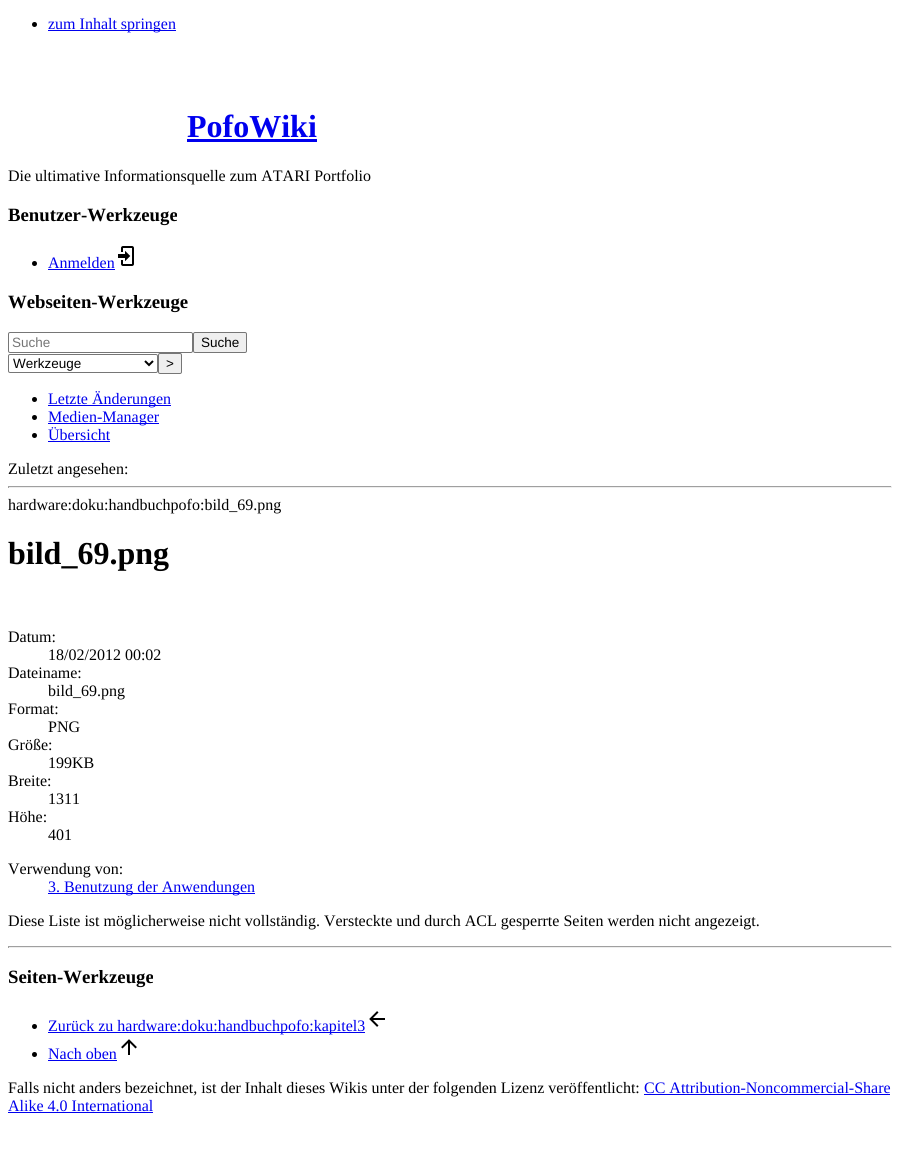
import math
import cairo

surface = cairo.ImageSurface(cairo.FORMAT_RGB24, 900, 1157)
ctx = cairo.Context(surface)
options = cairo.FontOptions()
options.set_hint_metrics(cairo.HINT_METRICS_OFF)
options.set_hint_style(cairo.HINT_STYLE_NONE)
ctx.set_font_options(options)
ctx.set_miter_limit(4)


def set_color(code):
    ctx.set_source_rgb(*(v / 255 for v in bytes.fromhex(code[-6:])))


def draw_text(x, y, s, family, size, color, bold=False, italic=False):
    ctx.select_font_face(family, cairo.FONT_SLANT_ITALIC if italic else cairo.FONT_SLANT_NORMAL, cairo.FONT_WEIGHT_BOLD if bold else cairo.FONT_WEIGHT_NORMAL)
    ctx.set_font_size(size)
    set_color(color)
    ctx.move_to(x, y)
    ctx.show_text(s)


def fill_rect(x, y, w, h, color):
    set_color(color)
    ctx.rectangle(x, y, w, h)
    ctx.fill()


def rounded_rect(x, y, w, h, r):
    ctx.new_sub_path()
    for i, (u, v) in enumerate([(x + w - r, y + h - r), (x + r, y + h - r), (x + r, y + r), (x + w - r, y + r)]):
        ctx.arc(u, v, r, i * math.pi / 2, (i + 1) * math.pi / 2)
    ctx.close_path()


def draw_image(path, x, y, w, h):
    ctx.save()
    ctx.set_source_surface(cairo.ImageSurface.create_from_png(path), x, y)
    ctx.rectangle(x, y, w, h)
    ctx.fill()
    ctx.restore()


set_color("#ffffff")
ctx.paint()
set_color("#000000")
ctx.arc(34.5, 24.5, 2.5, 0, 2 * math.pi)
ctx.fill()
fill_rect(48, 30, 128, 1, "#0000ee")
draw_text(48, 29, "zum Inhalt springen", "Liberation Serif", 16, "#0000ee")
draw_text(187, 137, "PofoWiki", "Liberation Serif", 32, "#0000ee", bold=True)
fill_rect(187, 139, 130, 3, "#0000ee")
draw_text(8, 181, "Die ultimative Informationsquelle zum ATARI Portfolio", "Liberation Serif", 16, "#000000")
draw_text(8, 221, "Benutzer-Werkzeuge", "Liberation Serif", 18.75, "#000000", bold=True)
ctx.new_path()
ctx.arc(34.5, 263.5, 2.5, 0, 2 * math.pi)
ctx.fill()
draw_text(48, 268, "Anmelden", "Liberation Serif", 16, "#0000ee")
fill_rect(48, 269, 67, 1, "#0000ee")
draw_image("assets/img1.png", 118, 246, 16, 20)
draw_text(8, 308, "Webseiten-Werkzeuge", "Liberation Serif", 18.75, "#000000", bold=True)
rounded_rect(8.5, 332.5, 184, 20, 1.5)
set_color("#767676")
ctx.set_line_width(1)
ctx.stroke()
draw_text(12, 347, "Suche", "Liberation Sans", 13.5, "#757575")
set_color("#efefef")
rounded_rect(193.5, 332.5, 53, 20, 1.5)
ctx.fill_preserve()
set_color("#767676")
ctx.stroke()
draw_text(201, 347, "Suche", "Liberation Sans", 13.5, "#000000")
rounded_rect(8.5, 354.5, 149, 18, 1.5)
set_color("#767676")
ctx.stroke()
ctx.new_path()
ctx.move_to(145, 361)
ctx.line_to(149, 365)
ctx.line_to(153, 361)
set_color("#000000")
ctx.set_line_width(2)
ctx.stroke()
draw_text(13, 368, "Werkzeuge", "Liberation Sans", 13.5, "#000000")
set_color("#efefef")
rounded_rect(158.5, 353.5, 23, 20, 1.5)
ctx.fill_preserve()
set_color("#767676")
ctx.set_line_width(1)
ctx.stroke()
draw_text(166, 368, ">", "Liberation Sans", 13.5, "#000000")
ctx.new_path()
ctx.arc(34.5, 399.5, 2.5, 0, 2 * math.pi)
ctx.fill()
fill_rect(48, 405, 123, 1, "#0000ee")
draw_text(48, 404, "Letzte Änderungen", "Liberation Serif", 16, "#0000ee")
set_color("#000000")
ctx.new_path()
ctx.arc(34.5, 417.5, 2.5, 0, 2 * math.pi)
ctx.fill()
fill_rect(48, 423, 111, 1, "#0000ee")
draw_text(48, 422, "Medien-Manager", "Liberation Serif", 16, "#0000ee")
set_color("#000000")
ctx.new_path()
ctx.arc(34.5, 435.5, 2.5, 0, 2 * math.pi)
ctx.fill()
draw_text(48, 440, "Übersicht", "Liberation Serif", 16, "#0000ee")
fill_rect(48, 441, 62, 1, "#0000ee")
draw_text(8, 474, "Zuletzt angesehen:", "Liberation Serif", 16, "#000000")
fill_rect(8, 486, 884, 1, "#9f9f9f")
fill_rect(891, 486, 1, 2, "#eeeeee")
fill_rect(8, 487, 884, 1, "#eeeeee")
fill_rect(8, 486, 1, 2, "#9f9f9f")
draw_text(8, 510, "hardware:doku:handbuchpofo:bild_69.png", "Liberation Serif", 16, "#000000")
draw_text(8, 564, "bild_69.png", "Liberation Serif", 32, "#000000", bold=True)
draw_text(8, 642, "Datum:", "Liberation Serif", 16, "#000000")
draw_text(48, 660, "18/02/2012 00:02", "Liberation Serif", 16, "#000000")
draw_text(8, 678, "Dateiname:", "Liberation Serif", 16, "#000000")
draw_text(48, 696, "bild_69.png", "Liberation Serif", 16, "#000000")
draw_text(8, 714, "Format:", "Liberation Serif", 16, "#000000")
draw_text(48, 732, "PNG", "Liberation Serif", 16, "#000000")
draw_text(8, 750, "Größe:", "Liberation Serif", 16, "#000000")
draw_text(48, 768, "199KB", "Liberation Serif", 16, "#000000")
draw_text(8, 786, "Breite:", "Liberation Serif", 16, "#000000")
draw_text(48, 804, "1311", "Liberation Serif", 16, "#000000")
draw_text(8, 822, "Höhe:", "Liberation Serif", 16, "#000000")
draw_text(48, 840, "401", "Liberation Serif", 16, "#000000")
draw_text(8, 874, "Verwendung von:", "Liberation Serif", 16, "#000000")
fill_rect(48, 893, 207, 1, "#0000ee")
draw_text(48, 892, "3. Benutzung der Anwendungen", "Liberation Serif", 16, "#0000ee")
draw_text(8, 926, "Diese Liste ist möglicherweise nicht vollständig. Versteckte und durch ACL gesperrte Seiten werden nicht angezeigt.", "Liberation Serif", 16, "#000000")
fill_rect(8, 946, 884, 1, "#9f9f9f")
fill_rect(891, 946, 1, 2, "#eeeeee")
fill_rect(8, 947, 884, 1, "#eeeeee")
fill_rect(8, 946, 1, 2, "#9f9f9f")
draw_text(8, 983, "Seiten-Werkzeuge", "Liberation Serif", 18.75, "#000000", bold=True)
ctx.new_path()
ctx.arc(34.5, 1026.5, 2.5, 0, 2 * math.pi)
ctx.fill()
fill_rect(48, 1032, 317, 1, "#0000ee")
draw_text(48, 1031, "Zurück zu hardware:doku:handbuchpofo:kapitel3", "Liberation Serif", 16, "#0000ee")
draw_image("assets/img2.png", 369, 1011, 16, 16)
set_color("#000000")
ctx.arc(34.5, 1054.5, 2.5, 0, 2 * math.pi)
ctx.fill()
draw_text(48, 1059, "Nach oben", "Liberation Serif", 16, "#0000ee")
fill_rect(48, 1060, 69, 1, "#0000ee")
draw_image("assets/img3.png", 121, 1039, 16, 16)
draw_text(8, 1093, "Falls nicht anders bezeichnet, ist der Inhalt dieses Wikis unter der folgenden Lizenz veröffentlicht:", "Liberation Serif", 16, "#000000")
draw_text(644, 1093, "CC Attribution-Noncommercial-Share", "Liberation Serif", 16, "#0000ee")
fill_rect(644, 1094, 246, 1, "#0000ee")
draw_text(8, 1111, "Alike 4.0 International", "Liberation Serif", 16, "#0000ee")
fill_rect(8, 1112, 145, 1, "#0000ee")
surface.write_to_png("output.png")
